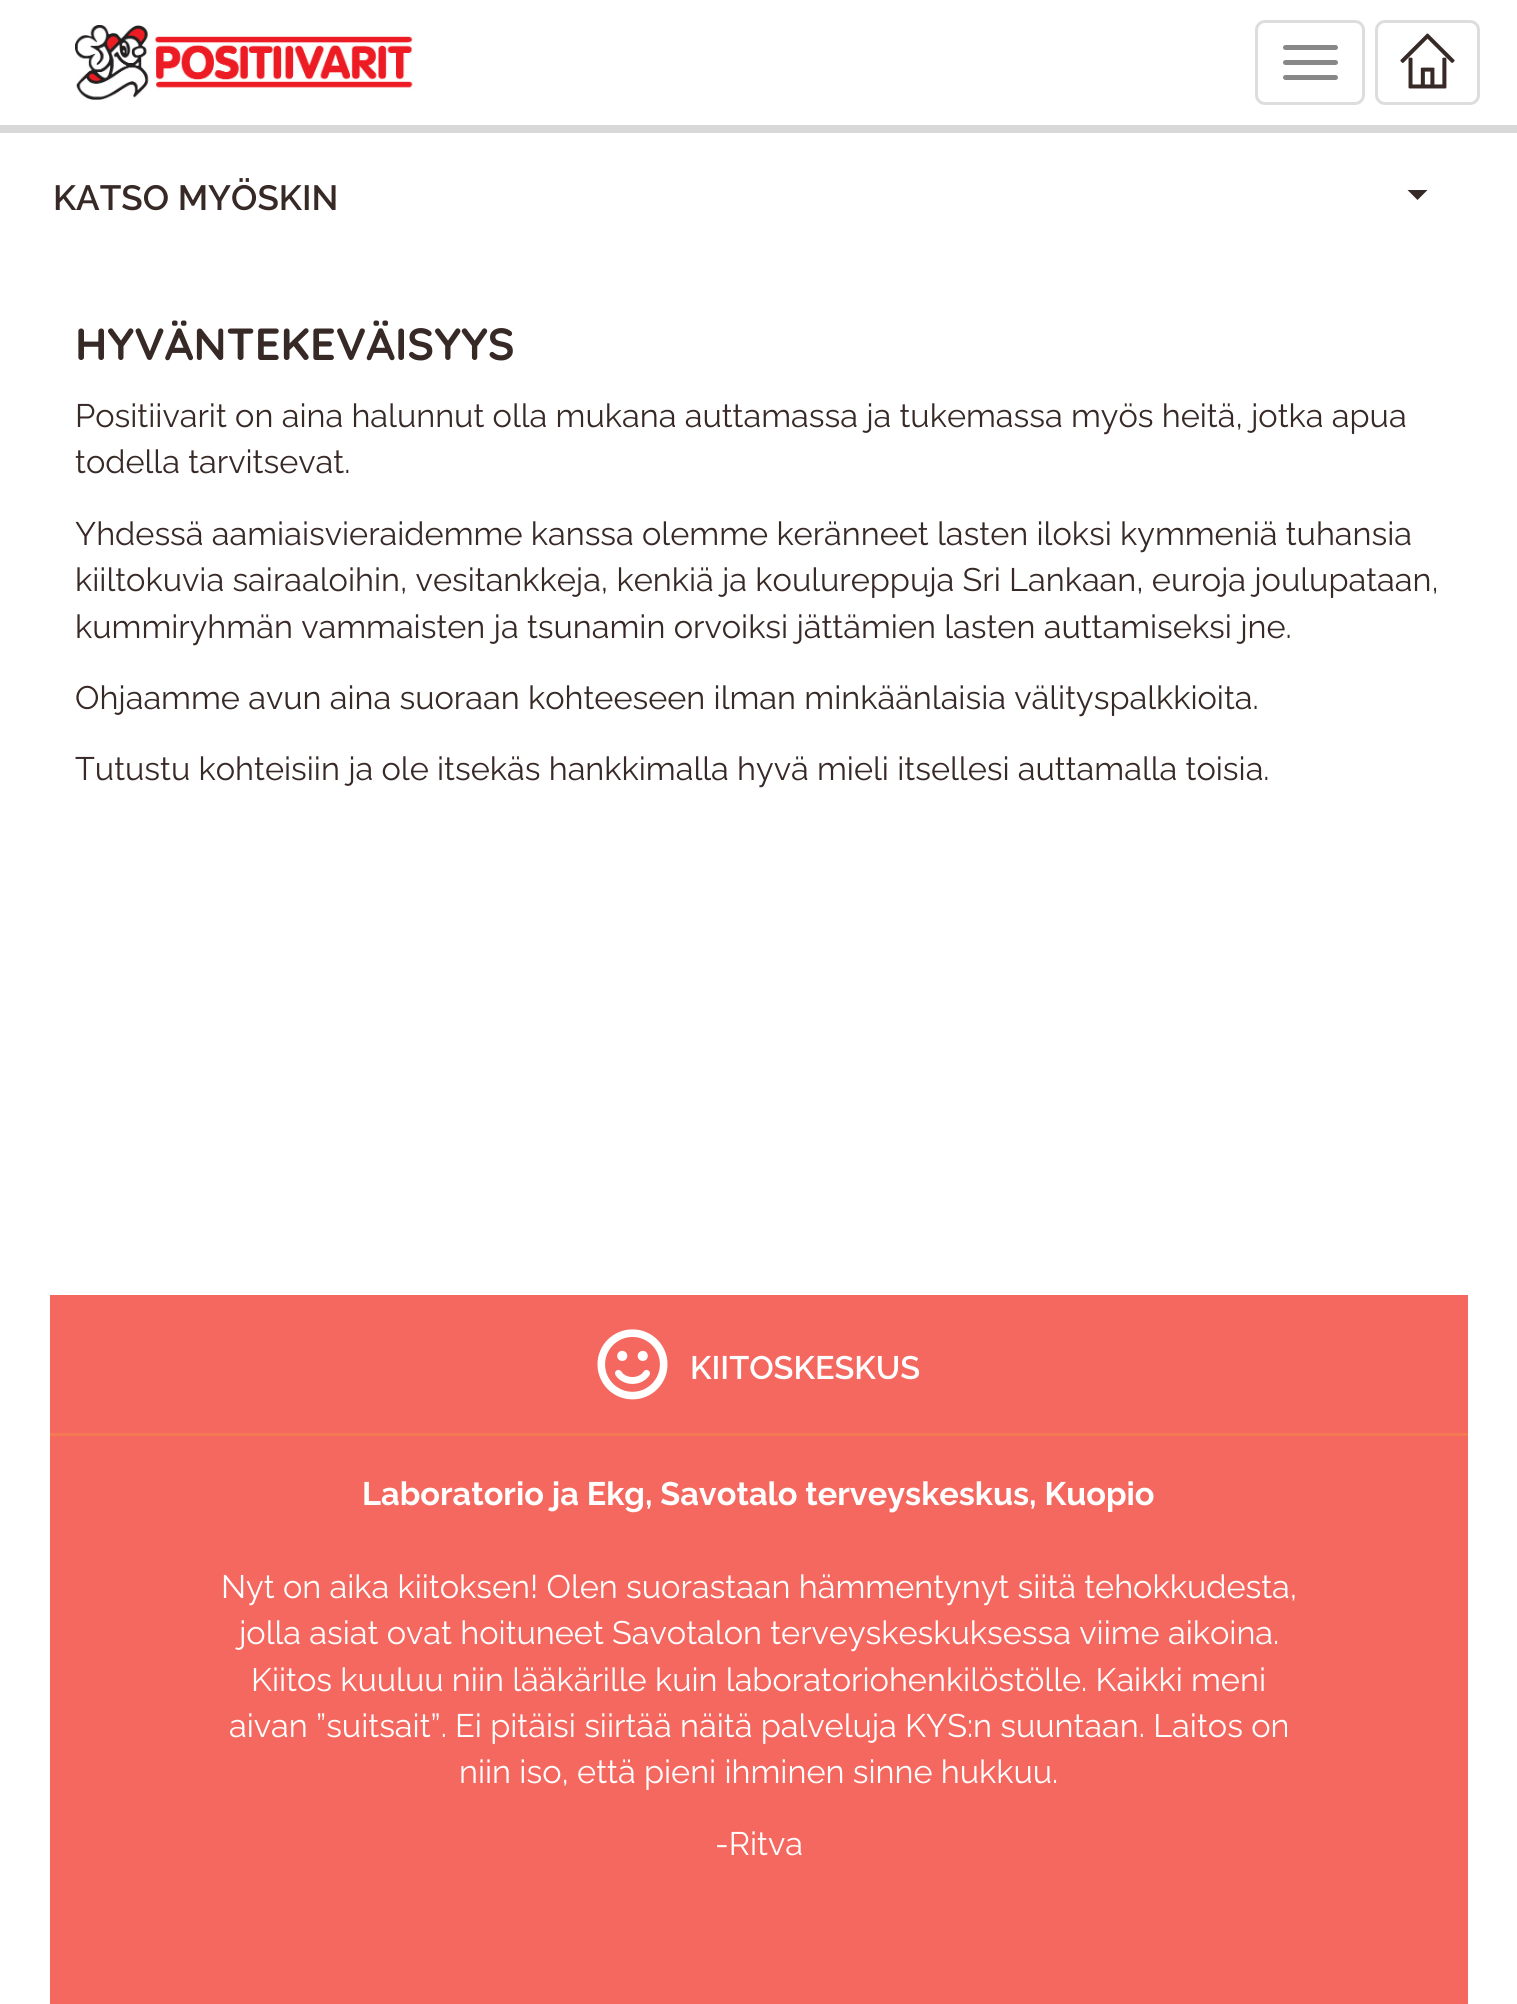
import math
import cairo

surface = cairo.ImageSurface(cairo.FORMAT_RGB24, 1517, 2004)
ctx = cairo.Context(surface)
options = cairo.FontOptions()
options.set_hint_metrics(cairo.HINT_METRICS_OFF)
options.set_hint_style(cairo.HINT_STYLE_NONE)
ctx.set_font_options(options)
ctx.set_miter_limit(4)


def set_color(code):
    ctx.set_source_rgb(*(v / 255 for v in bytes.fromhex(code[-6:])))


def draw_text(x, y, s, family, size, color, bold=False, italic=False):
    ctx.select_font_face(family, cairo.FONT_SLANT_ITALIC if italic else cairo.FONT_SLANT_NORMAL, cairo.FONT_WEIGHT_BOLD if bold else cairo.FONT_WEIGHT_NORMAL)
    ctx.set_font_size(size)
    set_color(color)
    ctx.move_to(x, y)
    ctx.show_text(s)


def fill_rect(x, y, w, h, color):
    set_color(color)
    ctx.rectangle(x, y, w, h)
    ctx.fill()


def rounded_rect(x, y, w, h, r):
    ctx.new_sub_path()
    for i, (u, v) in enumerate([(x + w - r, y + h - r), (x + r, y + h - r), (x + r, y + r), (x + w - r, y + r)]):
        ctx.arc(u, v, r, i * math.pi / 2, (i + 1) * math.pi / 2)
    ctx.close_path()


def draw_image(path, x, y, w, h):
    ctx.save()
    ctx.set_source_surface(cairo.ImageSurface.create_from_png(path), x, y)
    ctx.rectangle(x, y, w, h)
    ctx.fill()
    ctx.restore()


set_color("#ffffff")
ctx.paint()
fill_rect(0, 125, 1517, 8, "#d9d8d8")
draw_image("assets/img1.png", 75, 25, 338, 75)
rounded_rect(1256.5, 21.5, 107, 82, 8.5)
set_color("#dddddd")
ctx.set_line_width(3)
ctx.stroke()
set_color("#888888")
rounded_rect(1283, 45, 55, 5, 2.5)
ctx.fill()
rounded_rect(1283, 60, 55, 5, 2.5)
ctx.fill()
rounded_rect(1283, 75, 55, 5, 2.5)
ctx.fill()
rounded_rect(1376.5, 21.5, 102, 82, 8.5)
set_color("#dddddd")
ctx.stroke()
draw_image("assets/img2.png", 1400, 33, 55, 56)
draw_text(53, 210, "KATSO MYÖSKIN", "Raleway SemiBold", 35, "#372926")
ctx.new_path()
ctx.move_to(1407.5, 190)
ctx.line_to(1427.5, 190)
ctx.line_to(1417.5, 200)
ctx.close_path()
ctx.fill()
draw_text(75, 360, "HYVÄNTEKEVÄISYYS", "Quicksand Light", 45, "#372926")
draw_text(75, 427, "Positiivarit on aina halunnut olla mukana auttamassa ja tukemassa myös heitä, jotka apua", "Raleway", 32.5, "#372926")
draw_text(75, 473, "todella tarvitsevat.", "Raleway", 32.5, "#372926")
draw_text(75, 545, "Yhdessä aamiaisvieraidemme kanssa olemme keränneet lasten iloksi kymmeniä tuhansia", "Raleway", 32.5, "#372926")
draw_text(75, 591, "kiiltokuvia sairaaloihin, vesitankkeja, kenkiä ja koulureppuja Sri Lankaan, euroja joulupataan,", "Raleway", 32.5, "#372926")
draw_text(75, 638, "kummiryhmän vammaisten ja tsunamin orvoiksi jättämien lasten auttamiseksi jne.", "Raleway", 32.5, "#372926")
draw_text(75, 709, "Ohjaamme avun aina suoraan kohteeseen ilman minkäänlaisia välityspalkkioita.", "Raleway", 32.5, "#372926")
draw_text(75, 780, "Tutustu kohteisiin ja ole itsekäs hankkimalla hyvä mieli itsellesi auttamalla toisia.", "Raleway", 32.5, "#372926")
fill_rect(50, 1295, 1418, 709, "#f56860")
fill_rect(50, 1433, 1418, 3, "#f57a53")
draw_image("assets/img3.png", 597, 1329, 71, 71)
draw_text(690, 1379, "KIITOSKESKUS", "Raleway SemiBold", 32.5, "#ffffff")
draw_text(362, 1505, "Laboratorio ja Ekg, Savotalo terveyskeskus, Kuopio", "Raleway", 32.5, "#ffffff", bold=True)
draw_text(221, 1598, "Nyt on aika kiitoksen! Olen suorastaan hämmentynyt siitä tehokkudesta,", "Raleway", 32.5, "#ffffff")
draw_text(239, 1644, "jolla asiat ovat hoituneet Savotalon terveyskeskuksessa viime aikoina.", "Raleway", 32.5, "#ffffff")
draw_text(251, 1691, "Kiitos kuuluu niin lääkärille kuin laboratoriohenkilöstölle. Kaikki meni", "Raleway", 32.5, "#ffffff")
draw_text(229, 1737, "aivan ”suitsait”. Ei pitäisi siirtää näitä palveluja KYS:n suuntaan. Laitos on", "Raleway", 32.5, "#ffffff")
draw_text(459, 1783, "niin iso, että pieni ihminen sinne hukkuu.", "Raleway", 32.5, "#ffffff")
draw_text(715, 1855, "-Ritva", "Raleway", 32.5, "#ffffff")
surface.write_to_png("output.png")
